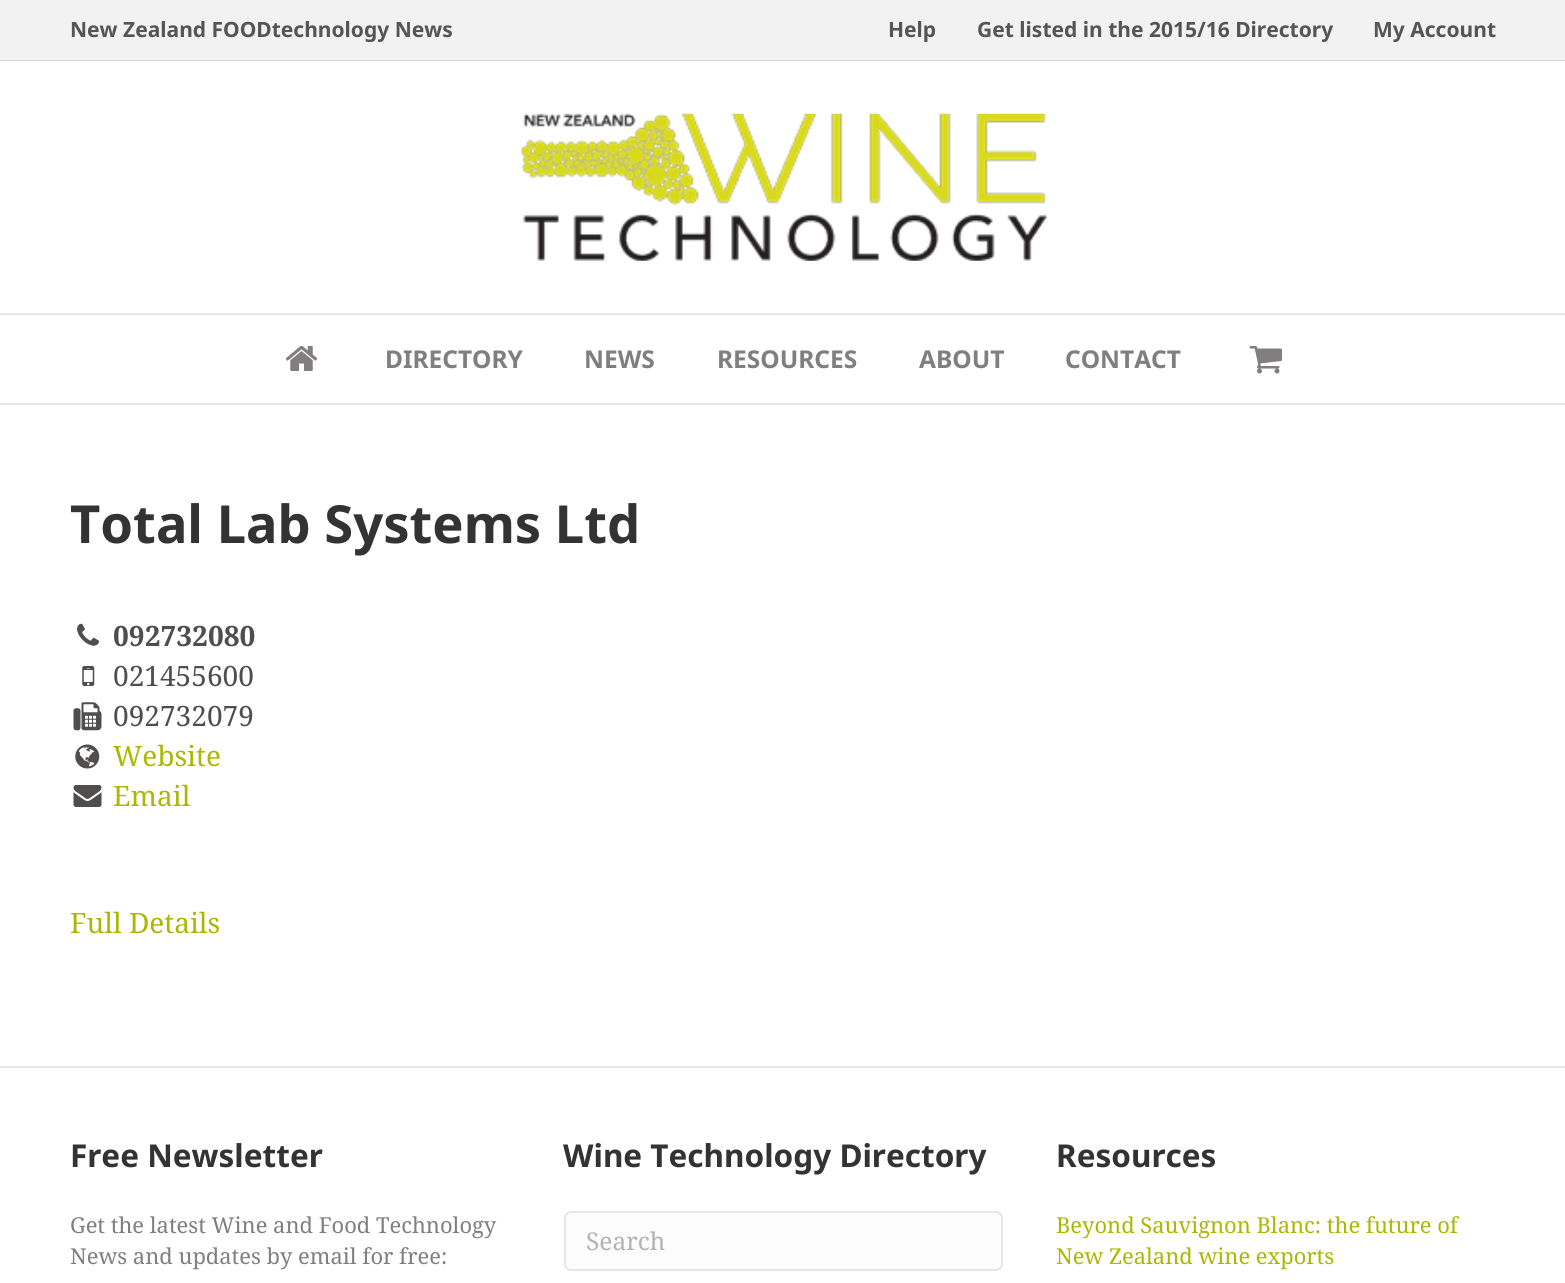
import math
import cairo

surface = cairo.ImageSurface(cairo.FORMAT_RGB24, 1565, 1283)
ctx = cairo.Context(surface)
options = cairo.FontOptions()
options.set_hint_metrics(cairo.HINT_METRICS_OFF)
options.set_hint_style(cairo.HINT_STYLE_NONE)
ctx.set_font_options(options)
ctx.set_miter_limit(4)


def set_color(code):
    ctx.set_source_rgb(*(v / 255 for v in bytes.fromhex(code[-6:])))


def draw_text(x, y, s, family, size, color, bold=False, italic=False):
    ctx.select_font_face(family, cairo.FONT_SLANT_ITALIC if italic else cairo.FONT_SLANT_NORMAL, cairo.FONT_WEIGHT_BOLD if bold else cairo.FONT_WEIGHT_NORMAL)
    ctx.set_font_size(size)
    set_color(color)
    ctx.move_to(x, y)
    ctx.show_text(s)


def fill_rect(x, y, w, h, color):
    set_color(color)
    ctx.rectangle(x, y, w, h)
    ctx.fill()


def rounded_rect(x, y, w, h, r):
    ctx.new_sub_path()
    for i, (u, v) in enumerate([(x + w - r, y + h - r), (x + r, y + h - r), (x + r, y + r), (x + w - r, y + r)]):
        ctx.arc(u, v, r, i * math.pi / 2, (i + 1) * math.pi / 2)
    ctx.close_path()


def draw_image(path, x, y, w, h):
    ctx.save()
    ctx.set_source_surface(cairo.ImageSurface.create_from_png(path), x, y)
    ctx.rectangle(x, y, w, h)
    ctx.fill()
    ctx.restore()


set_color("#f2f2f2")
ctx.paint()
fill_rect(0, 60, 1565, 1, "#d3d3d3")
draw_text(70, 37, "New Zealand FOODtechnology News", "Noto Sans", 21, "#555555", bold=True)
draw_text(888, 37, "Help", "Noto Sans", 21, "#555555", bold=True)
draw_text(977, 37, "Get listed in the 2015/16 Directory", "Noto Sans", 21, "#555555", bold=True)
draw_text(1373, 37, "My Account", "Noto Sans", 21, "#555555", bold=True)
fill_rect(0, 61, 1565, 342, "#ffffff")
draw_image("assets/img1.png", 521, 113, 526, 148)
fill_rect(0, 313, 1565, 2, "#e6e6e6")
fill_rect(0, 403, 1565, 2, "#e6e6e6")
draw_image("assets/img2.png", 285, 346, 33, 25)
draw_text(385, 368, "DIRECTORY", "Noto Sans", 24.5, "#807e7e", bold=True)
draw_text(584, 368, "NEWS", "Noto Sans", 24.5, "#807e7e", bold=True)
draw_text(717, 368, "RESOURCES", "Noto Sans", 24.5, "#807e7e", bold=True)
draw_text(919, 368, "ABOUT", "Noto Sans", 24.5, "#807e7e", bold=True)
draw_text(1065, 368, "CONTACT", "Noto Sans", 24.5, "#807e7e", bold=True)
draw_image("assets/img3.png", 1249, 346, 33, 28)
fill_rect(0, 405, 1565, 661, "#ffffff")
draw_text(70, 543, "Total Lab Systems Ltd", "Noto Sans", 52.5, "#333333", bold=True)
draw_image("assets/img4.png", 77, 623, 22, 23)
draw_text(113, 646, "092732080", "Noto Serif", 28, "#504d4d", bold=True)
draw_image("assets/img5.png", 82, 666, 13, 20)
draw_text(113, 686, "021455600", "Noto Serif", 28, "#504d4d")
draw_image("assets/img6.png", 73, 702, 29, 29)
draw_text(113, 726, "092732079", "Noto Serif", 28, "#504d4d")
draw_image("assets/img7.png", 75, 744, 25, 25)
draw_text(113, 766, "Website", "Noto Serif", 28, "#abb701")
draw_image("assets/img8.png", 73, 785, 29, 22)
draw_text(113, 806, "Email", "Noto Serif", 28, "#abb701")
draw_text(70, 933, "Full Details", "Noto Serif", 28, "#abb701")
fill_rect(0, 1068, 1565, 215, "#ffffff")
fill_rect(0, 1066, 1565, 2, "#e6e6e6")
draw_text(70, 1167, "Free Newsletter", "Noto Sans", 31.5, "#333333", bold=True)
draw_text(70, 1233, "Get the latest Wine and Food Technology", "Noto Serif", 21.9, "#807e7e")
draw_text(70, 1264, "News and updates by email for free:", "Noto Serif", 21.9, "#807e7e")
draw_text(563, 1167, "Wine Technology Directory", "Noto Sans", 31.5, "#333333", bold=True)
set_color("#fcfcfc")
rounded_rect(565, 1212, 437, 58, 6)
ctx.fill_preserve()
set_color("#e6e6e6")
ctx.stroke()
draw_text(586, 1250, "Search", "Noto Serif", 24.5, "#b2b2b2")
draw_text(1056, 1167, "Resources", "Noto Sans", 31.5, "#333333", bold=True)
draw_text(1056, 1233, "Beyond Sauvignon Blanc: the future of", "Noto Serif", 21.9, "#abb701")
draw_text(1056, 1264, "New Zealand wine exports", "Noto Serif", 21.9, "#abb701")
surface.write_to_png("output.png")
